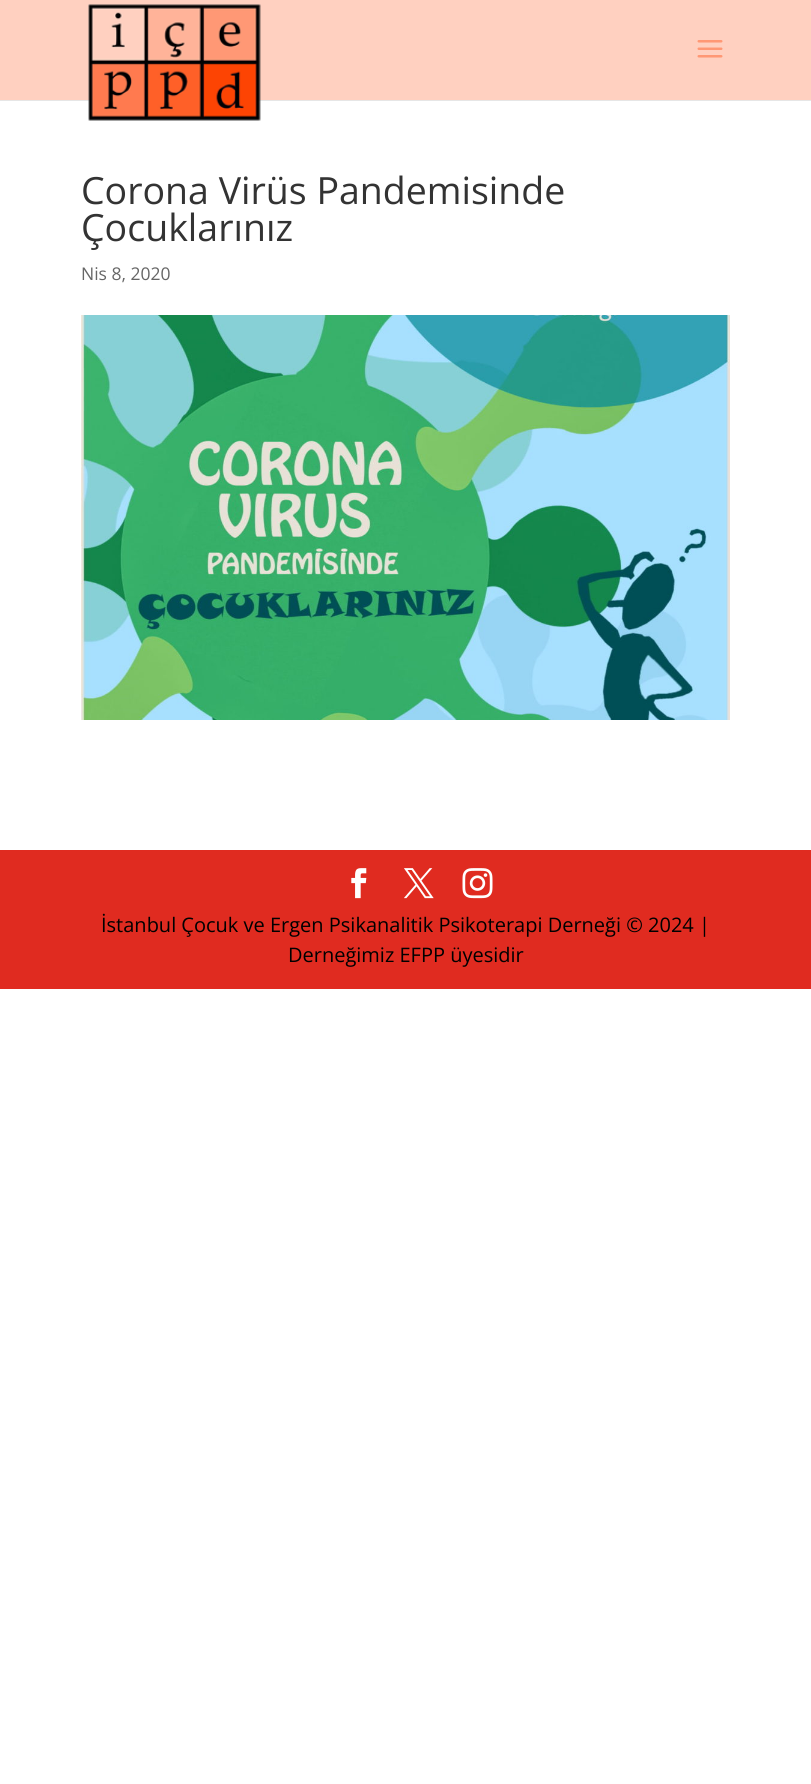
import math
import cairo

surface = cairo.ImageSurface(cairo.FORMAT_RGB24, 811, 1784)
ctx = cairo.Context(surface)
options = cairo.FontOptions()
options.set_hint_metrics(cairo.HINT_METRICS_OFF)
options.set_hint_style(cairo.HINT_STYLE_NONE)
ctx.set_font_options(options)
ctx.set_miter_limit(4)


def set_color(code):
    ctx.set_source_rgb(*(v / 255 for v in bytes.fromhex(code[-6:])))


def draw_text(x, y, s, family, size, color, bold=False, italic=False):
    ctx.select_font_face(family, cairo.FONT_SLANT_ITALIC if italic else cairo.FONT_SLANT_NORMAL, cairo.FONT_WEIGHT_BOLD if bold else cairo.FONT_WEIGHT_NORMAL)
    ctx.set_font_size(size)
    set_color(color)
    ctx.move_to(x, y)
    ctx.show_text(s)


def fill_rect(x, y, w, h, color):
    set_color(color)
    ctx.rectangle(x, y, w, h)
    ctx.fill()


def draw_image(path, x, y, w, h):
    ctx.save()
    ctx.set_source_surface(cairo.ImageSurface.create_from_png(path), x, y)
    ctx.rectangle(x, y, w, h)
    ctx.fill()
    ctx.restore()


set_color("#ffffff")
ctx.paint()
fill_rect(0, 100, 811, 1, "#e6e6e6")
fill_rect(0, 0, 811, 100, "#ffd0c0")
draw_image("assets/img1.png", 88, 4, 173, 117)
draw_image("assets/img2.png", 697, 40, 26, 18)
draw_text(81, 204, "Corona Virüs Pandemisinde", "Open Sans", 37.5, "#333333")
draw_text(81, 241, "Çocuklarınız", "Open Sans", 37.5, "#333333")
draw_text(81, 280, "Nis 8, 2020", "Open Sans", 17.5, "#666666")
draw_image("assets/img3.png", 81, 315, 649, 405)
fill_rect(0, 850, 811, 139, "#e02b20")
draw_image("assets/img4.png", 351, 868, 16, 31)
draw_image("assets/img5.png", 404, 868, 30, 31)
draw_image("assets/img6.png", 462, 868, 31, 31)
draw_text(101, 932, "İstanbul Çocuk ve Ergen Psikanalitik Psikoterapi Derneği © 2024 |", "Open Sans", 20, "#000000")
draw_text(288, 962, "Derneğimiz EFPP üyesidir", "Open Sans", 20, "#000000")
surface.write_to_png("output.png")
